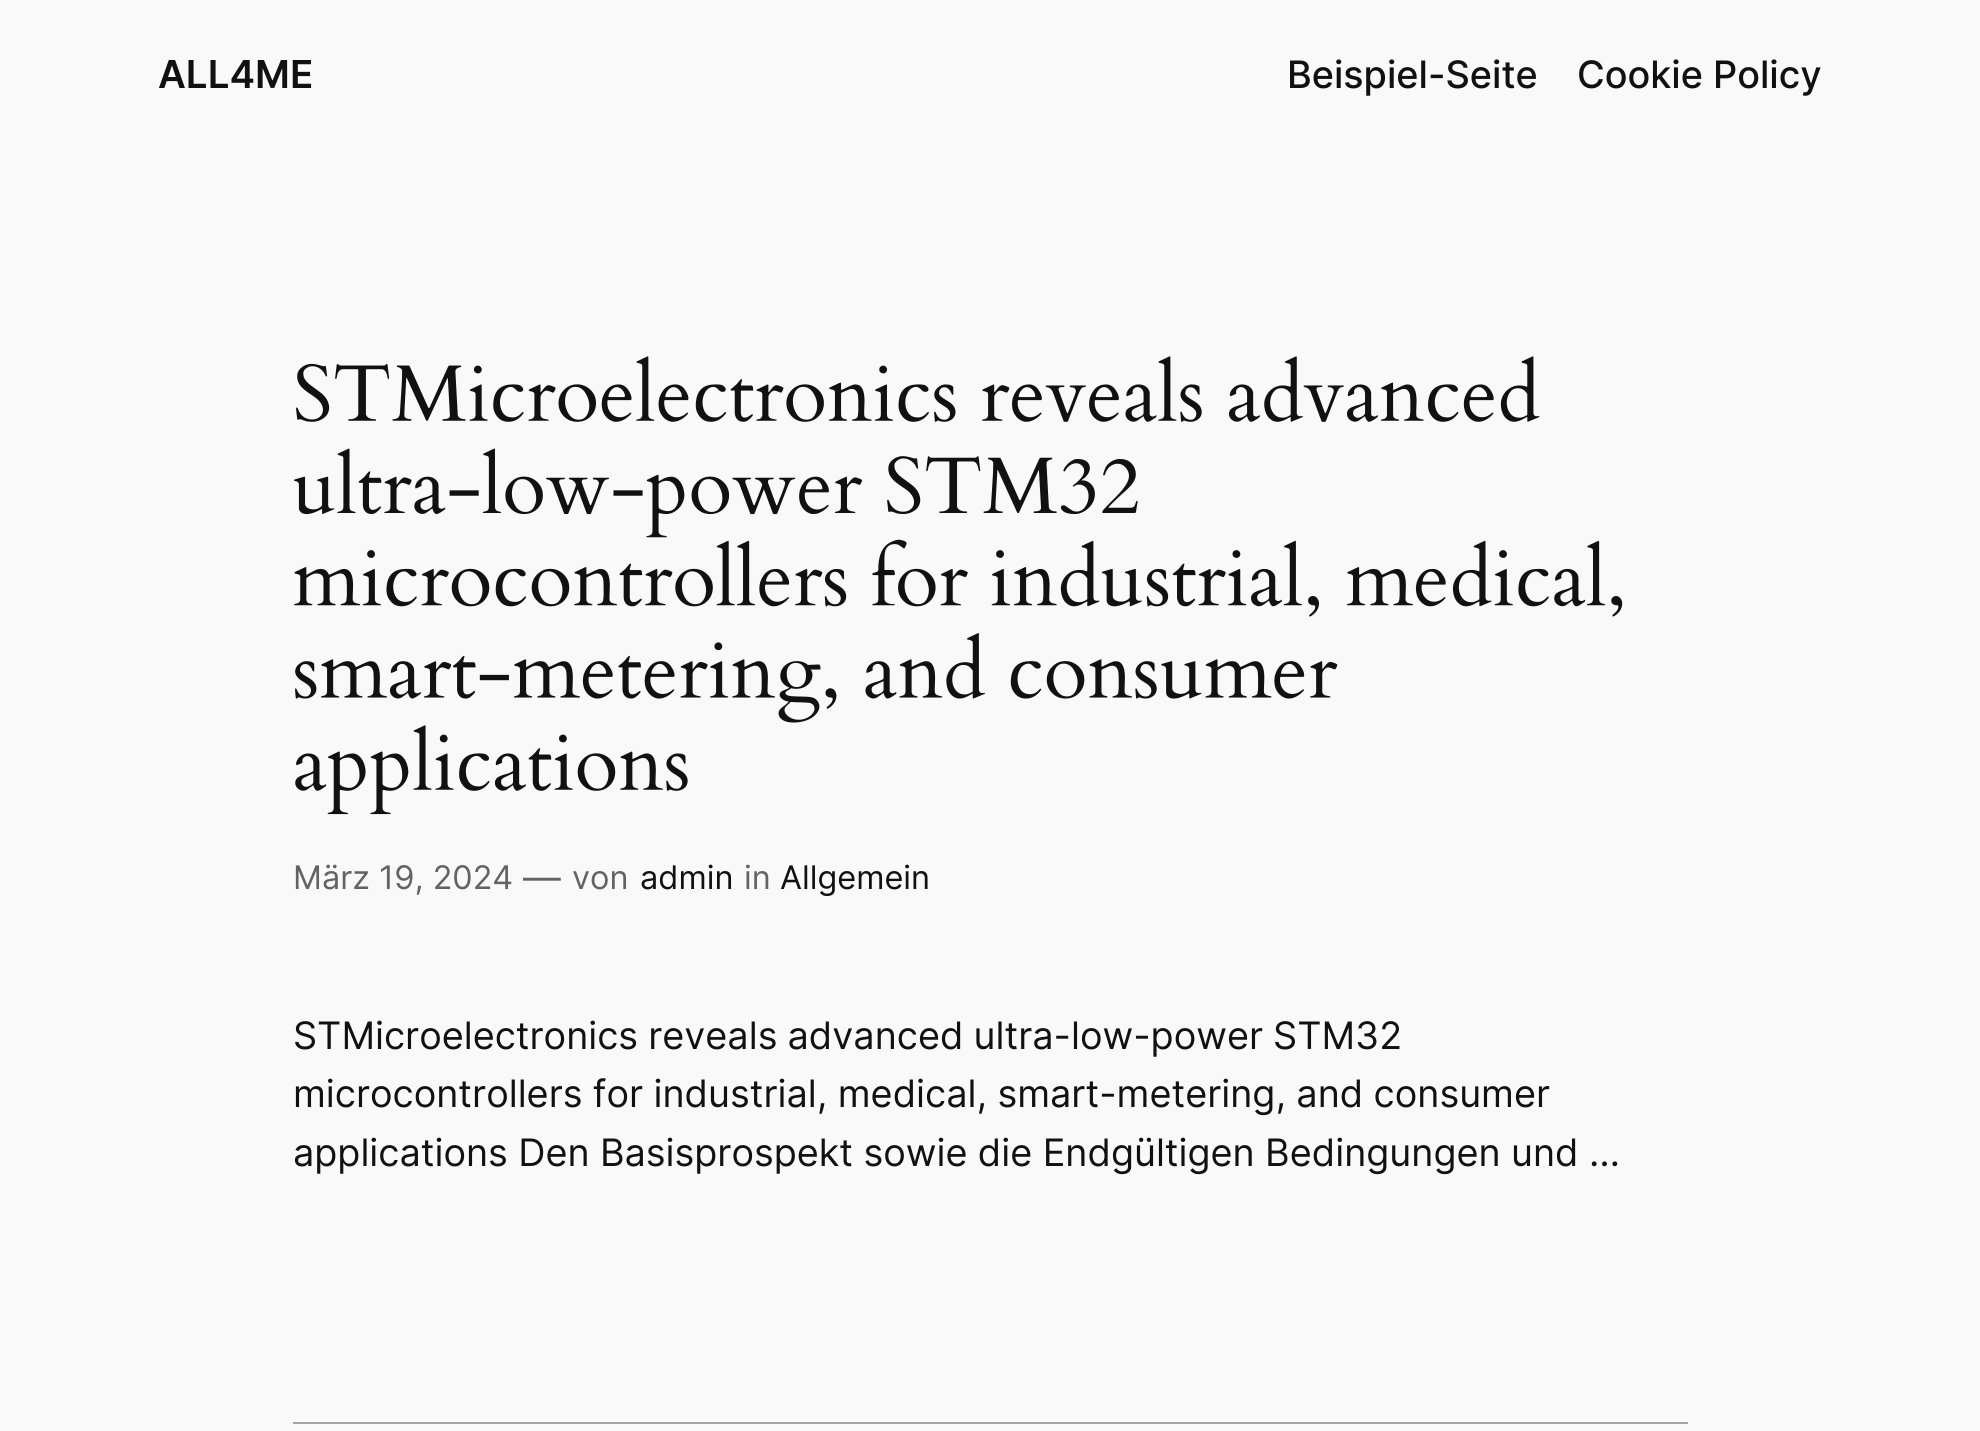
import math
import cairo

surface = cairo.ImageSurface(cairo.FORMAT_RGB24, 1980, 1431)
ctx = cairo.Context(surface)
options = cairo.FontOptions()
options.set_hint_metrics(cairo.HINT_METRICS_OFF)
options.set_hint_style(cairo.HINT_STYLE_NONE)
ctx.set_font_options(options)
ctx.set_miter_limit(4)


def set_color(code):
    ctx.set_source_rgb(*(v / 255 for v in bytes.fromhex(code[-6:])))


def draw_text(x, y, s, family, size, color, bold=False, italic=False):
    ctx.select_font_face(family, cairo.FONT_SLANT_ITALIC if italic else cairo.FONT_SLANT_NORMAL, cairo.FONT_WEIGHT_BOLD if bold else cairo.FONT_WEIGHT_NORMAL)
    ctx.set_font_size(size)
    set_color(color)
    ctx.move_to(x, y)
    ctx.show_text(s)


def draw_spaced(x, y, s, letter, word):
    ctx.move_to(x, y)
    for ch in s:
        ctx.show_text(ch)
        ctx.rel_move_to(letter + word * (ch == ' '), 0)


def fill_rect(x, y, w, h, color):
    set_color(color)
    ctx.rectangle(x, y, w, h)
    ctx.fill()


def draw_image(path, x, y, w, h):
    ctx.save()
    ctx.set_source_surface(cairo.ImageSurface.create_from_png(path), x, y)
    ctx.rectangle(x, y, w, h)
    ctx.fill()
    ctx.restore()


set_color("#f9f9f9")
ctx.paint()
draw_text(158, 88, "ALL4ME", "Inter SemiBold", 38.5, "#111111")
draw_text(1287, 88, "Beispiel-Seite", "Inter Medium", 37.8, "#111111")
draw_text(1577, 88, "Cookie Policy", "Inter Medium", 37.8, "#111111")
draw_image("assets/img1.png", 296, 356, 1244, 66)
draw_image("assets/img2.png", 294, 448, 844, 90)
draw_image("assets/img3.png", 294, 539, 1329, 78)
draw_image("assets/img4.png", 295, 633, 1043, 90)
draw_image("assets/img5.png", 295, 725, 393, 90)
draw_text(293, 889, "März 19, 2024", "Inter", 32.5, "#636363")
draw_text(523, 891, "—", "Inter", 37.8, "#636363")
draw_text(572, 889, "von", "Inter", 32.5, "#636363")
draw_text(640, 889, "admin", "Inter", 32.5, "#111111")
draw_text(744, 889, "in", "Inter", 32.5, "#636363")
draw_text(780, 889, "Allgemein", "Inter", 32.5, "#111111")
ctx.set_font_size(37.8)
draw_spaced(293, 1049, "STMicroelectronics reveals advanced ultra-low-power STM32", 0, -0.5)
draw_spaced(293, 1107, "microcontrollers for industrial, medical, smart-metering, and consumer", 0, -0.25)
draw_spaced(293, 1166, "applications Den Basisprospekt sowie die Endgültigen Bedingungen und …", 0, -0.25)
fill_rect(293, 1422, 1395, 2, "#a4a4a4")
surface.write_to_png("output.png")
